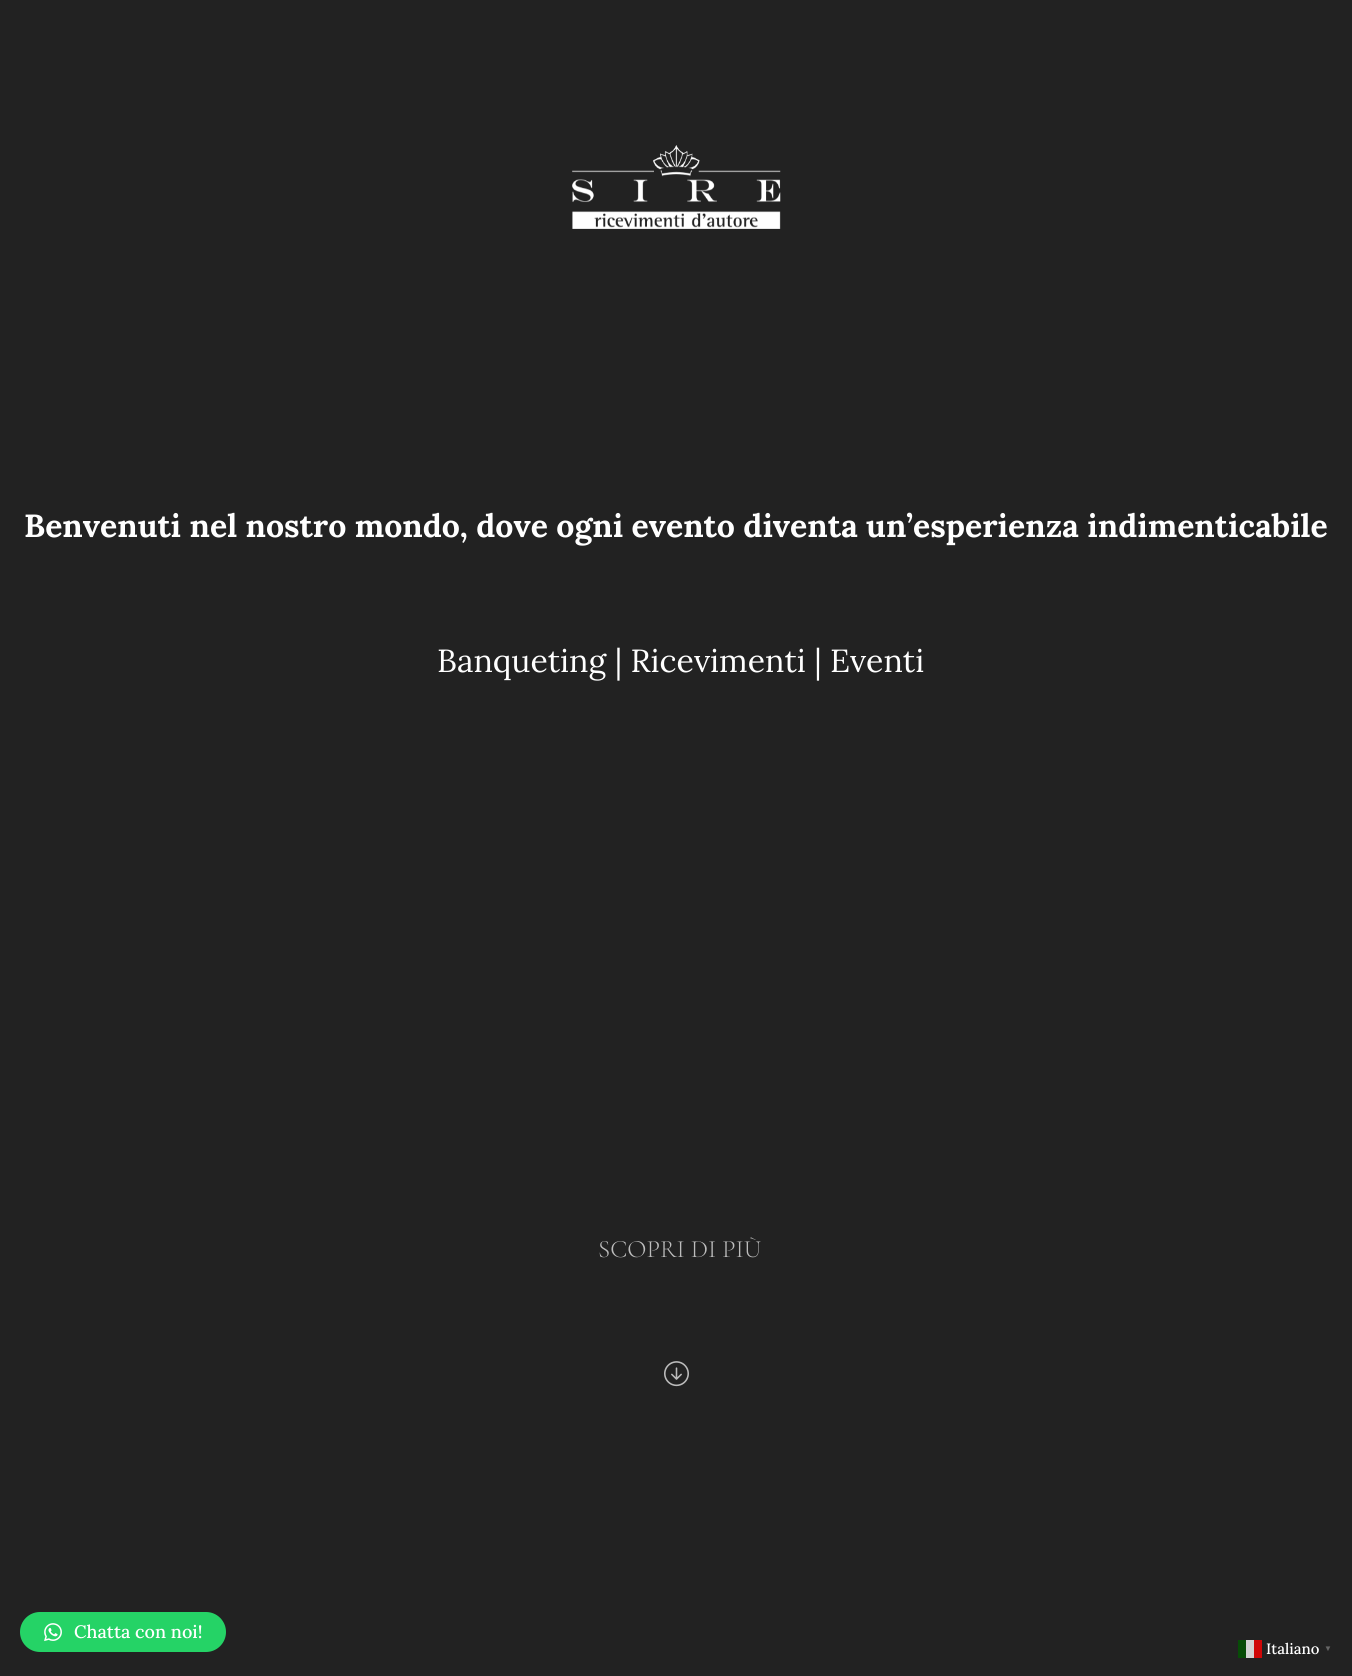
import math
import cairo

surface = cairo.ImageSurface(cairo.FORMAT_RGB24, 1352, 1676)
ctx = cairo.Context(surface)
options = cairo.FontOptions()
options.set_hint_metrics(cairo.HINT_METRICS_OFF)
options.set_hint_style(cairo.HINT_STYLE_NONE)
ctx.set_font_options(options)
ctx.set_miter_limit(4)


def set_color(code):
    ctx.set_source_rgb(*(v / 255 for v in bytes.fromhex(code[-6:])))


def draw_text(x, y, s, family, size, color, bold=False, italic=False):
    ctx.select_font_face(family, cairo.FONT_SLANT_ITALIC if italic else cairo.FONT_SLANT_NORMAL, cairo.FONT_WEIGHT_BOLD if bold else cairo.FONT_WEIGHT_NORMAL)
    ctx.set_font_size(size)
    set_color(color)
    ctx.move_to(x, y)
    ctx.show_text(s)


def fill_rect(x, y, w, h, color):
    set_color(color)
    ctx.rectangle(x, y, w, h)
    ctx.fill()


def rounded_rect(x, y, w, h, r):
    ctx.new_sub_path()
    for i, (u, v) in enumerate([(x + w - r, y + h - r), (x + r, y + h - r), (x + r, y + r), (x + w - r, y + r)]):
        ctx.arc(u, v, r, i * math.pi / 2, (i + 1) * math.pi / 2)
    ctx.close_path()


def draw_image(path, x, y, w, h):
    ctx.save()
    ctx.set_source_surface(cairo.ImageSurface.create_from_png(path), x, y)
    ctx.rectangle(x, y, w, h)
    ctx.fill()
    ctx.restore()


set_color("#222222")
ctx.paint()
draw_image("assets/img1.png", 572, 145, 209, 84)
draw_text(24, 537, "Benvenuti nel nostro mondo, dove ogni evento diventa un’esperienza indimenticabile", "Lora", 32, "#ffffff", bold=True)
draw_text(437, 672, "Banqueting | Ricevimenti | Eventi", "Lora", 32, "#ffffff")
draw_text(598, 1257, "SCOPRI DI PIÙ", "Cormorant Garamond Light", 25, "#bdbdbd")
draw_image("assets/img2.png", 664, 1361, 25, 26)
set_color("#25d366")
rounded_rect(20, 1612, 206, 40, 20)
ctx.fill()
draw_image("assets/img3.png", 44, 1623, 18, 19)
draw_text(74, 1638, "Chatta con noi!", "Lora Medium", 18, "#ffffff")
draw_text(1266, 1654, "Italiano", "Lora Medium", 15, "#ffffff")
fill_rect(1246, 1640, 8, 18, "#d3d3d3")
fill_rect(1238, 1640, 8, 18, "#074c07")
fill_rect(1254, 1640, 8, 18, "#d00707")
draw_text(1324, 1651, "▼", "Liberation Serif", 8, "#666666", bold=True)
surface.write_to_png("output.png")
